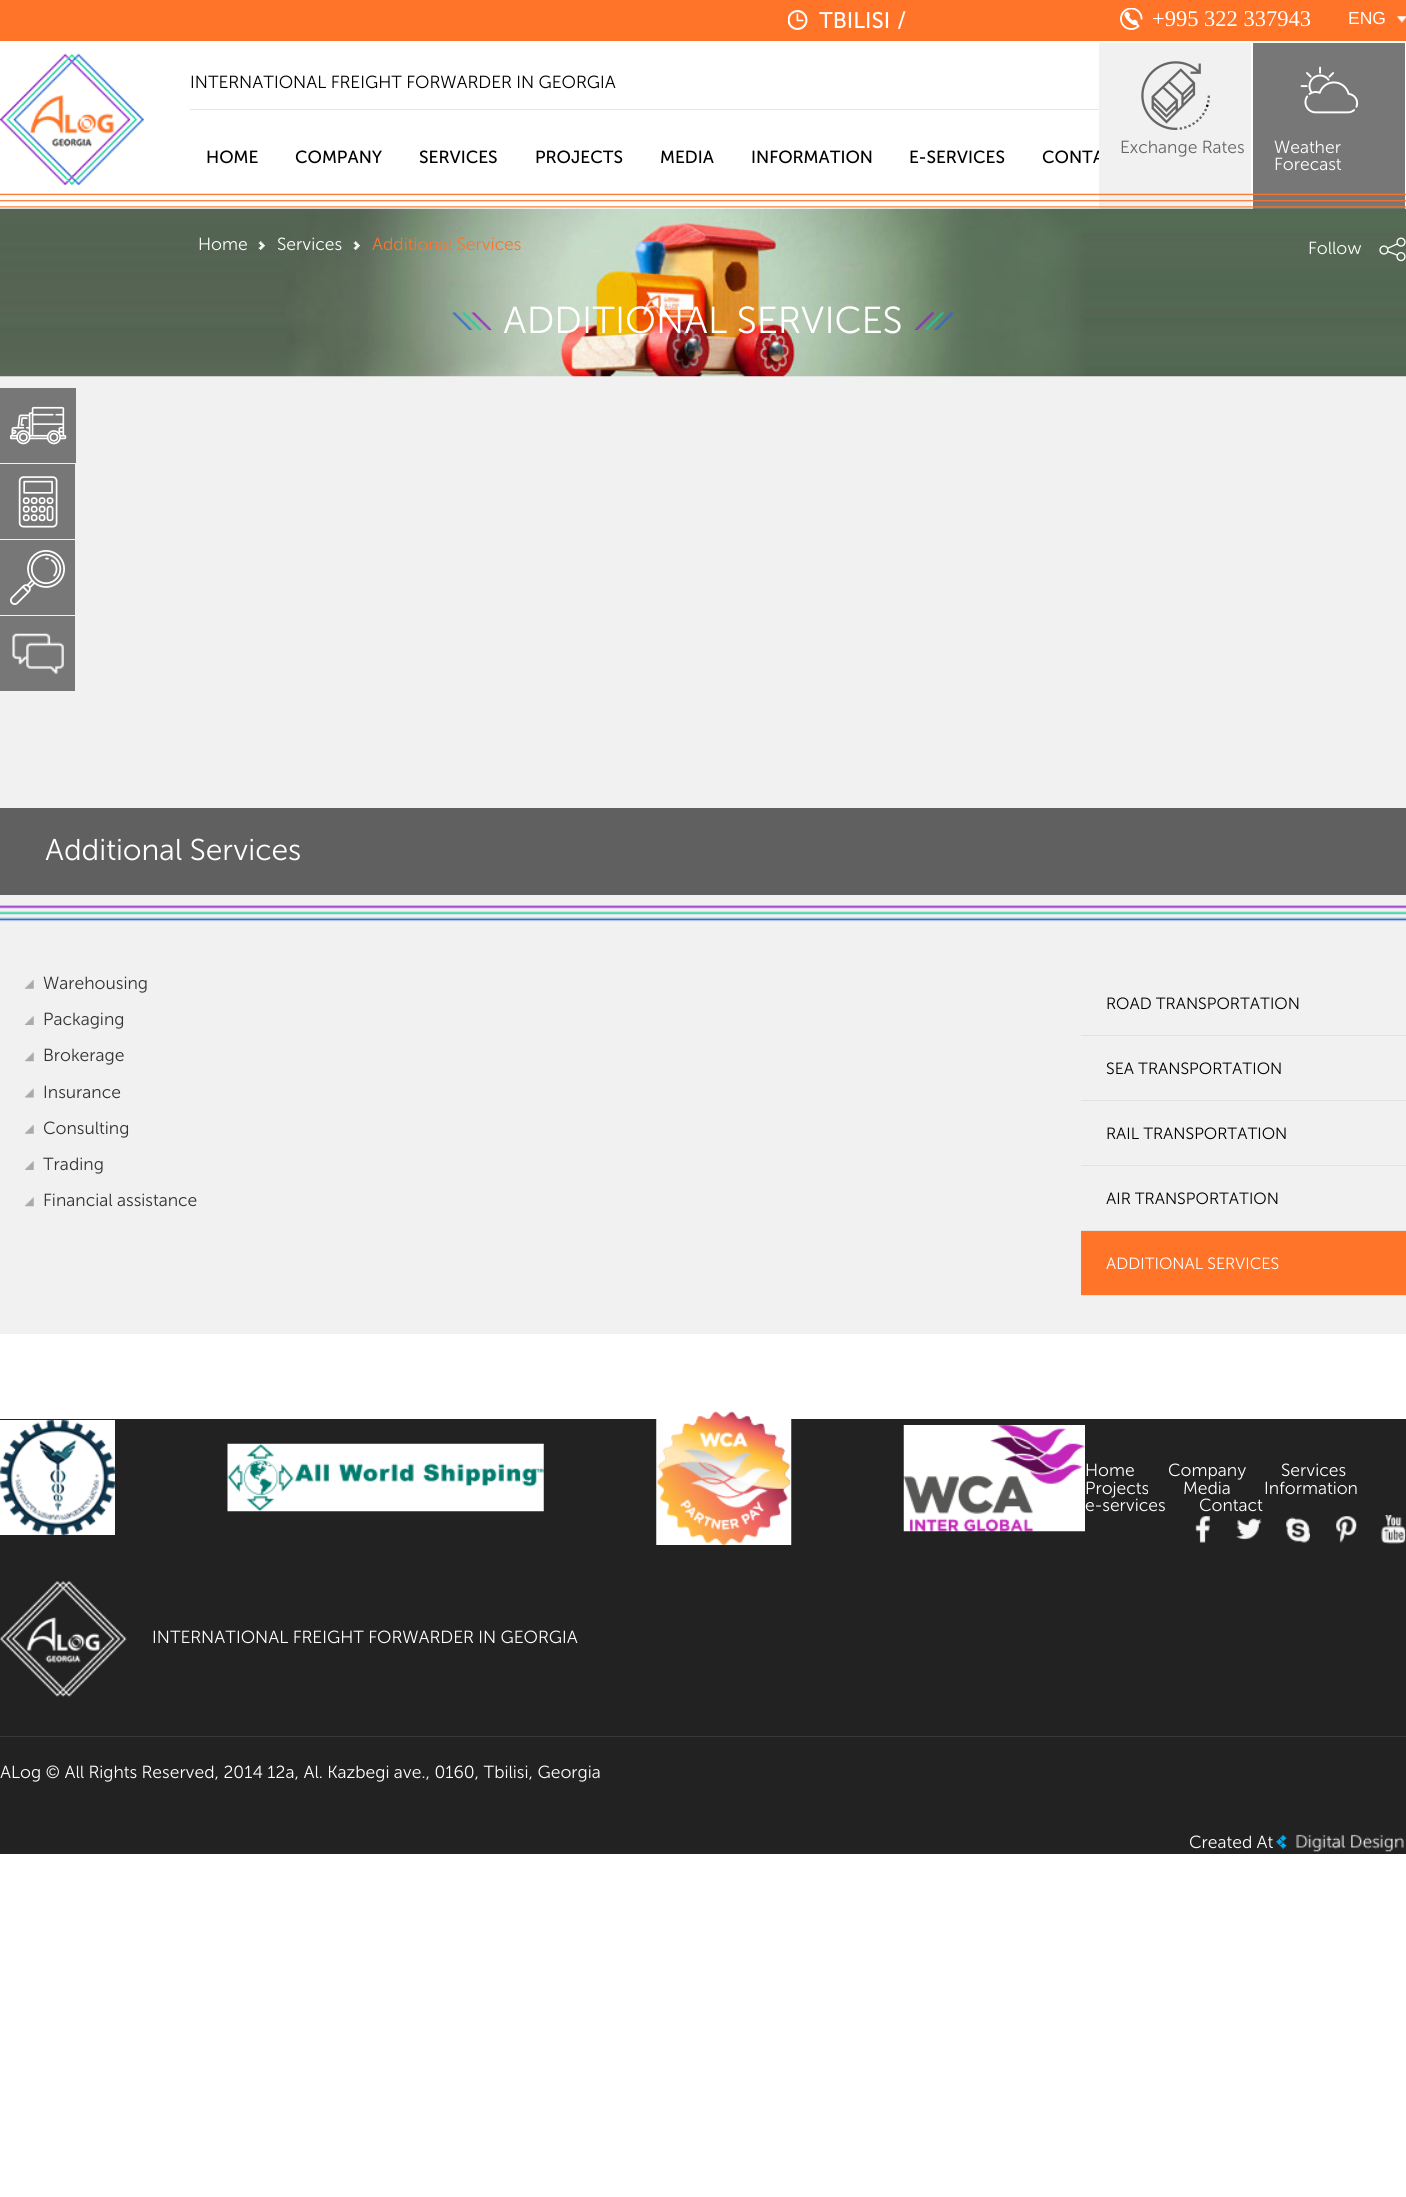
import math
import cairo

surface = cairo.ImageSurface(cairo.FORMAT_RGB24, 1406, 2197)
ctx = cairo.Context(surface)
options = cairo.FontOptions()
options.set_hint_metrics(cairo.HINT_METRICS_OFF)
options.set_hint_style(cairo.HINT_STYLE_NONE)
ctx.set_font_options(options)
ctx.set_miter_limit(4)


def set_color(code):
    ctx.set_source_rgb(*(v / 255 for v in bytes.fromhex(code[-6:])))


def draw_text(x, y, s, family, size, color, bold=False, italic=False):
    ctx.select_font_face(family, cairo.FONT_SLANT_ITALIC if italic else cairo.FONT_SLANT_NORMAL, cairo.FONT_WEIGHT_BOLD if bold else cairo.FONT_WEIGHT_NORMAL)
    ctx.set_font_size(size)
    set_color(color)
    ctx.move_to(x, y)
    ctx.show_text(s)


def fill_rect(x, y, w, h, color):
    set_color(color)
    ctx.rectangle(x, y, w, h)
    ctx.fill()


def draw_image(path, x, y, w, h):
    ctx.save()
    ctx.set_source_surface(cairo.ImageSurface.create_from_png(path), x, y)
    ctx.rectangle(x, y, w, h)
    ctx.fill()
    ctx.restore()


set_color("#ffffff")
ctx.paint()
fill_rect(0, 0, 1406, 41, "#ff7429")
draw_image("assets/img1.png", 788, 10, 20, 20)
draw_text(819, 28, "TBILISI", "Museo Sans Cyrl", 22.5, "#ffffff")
draw_text(897, 28, "/", "Museo Sans Cyrl", 22.5, "#ffffff")
draw_image("assets/img2.png", 1120, 8, 23, 22)
draw_text(1152, 26, "+995 322 337943", "Liberation Serif", 22.5, "#ffffff")
draw_image("assets/img3.png", 1397, 16, 9, 7)
draw_text(1348, 24, "ENG", "Liberation Sans", 17.5, "#ffffff")
draw_image("assets/img4.png", 0, 53, 144, 132)
fill_rect(190, 109, 909, 1, "#e6e6e6")
draw_text(190, 88, "INTERNATIONAL FREIGHT FORWARDER IN GEORGIA", "Museo Sans Cyrl Light", 17.5, "#000000")
draw_text(206, 163, "HOME", "Museo Sans Cyrl", 17.5, "#000000")
draw_text(295, 163, "COMPANY", "Museo Sans Cyrl", 17.5, "#000000")
draw_text(419, 163, "SERVICES", "Museo Sans Cyrl", 17.5, "#000000")
draw_text(535, 163, "PROJECTS", "Museo Sans Cyrl", 17.5, "#000000")
draw_text(660, 163, "MEDIA", "Museo Sans Cyrl", 17.5, "#000000")
draw_text(751, 163, "INFORMATION", "Museo Sans Cyrl", 17.5, "#000000")
draw_text(909, 163, "E-SERVICES", "Museo Sans Cyrl", 17.5, "#000000")
draw_text(1042, 163, "CONTA", "Museo Sans Cyrl", 17.5, "#000000")
fill_rect(1099, 43, 152, 166, "#f1f1f1")
draw_image("assets/img5.png", 1141, 61, 69, 69)
draw_text(1120, 153, "Exchange Rates", "Museo Sans Cyrl Light", 17.5, "#666666")
fill_rect(1253, 43, 152, 166, "#777777")
draw_image("assets/img6.png", 1300, 66, 59, 48)
draw_text(1274, 153, "Weather", "Museo Sans Cyrl Light", 17.5, "#ffffff")
draw_text(1274, 170, "Forecast", "Museo Sans Cyrl Light", 17.5, "#ffffff")
fill_rect(0, 376, 1406, 958, "#f1f1f1")
fill_rect(0, 388, 76, 75, "#777777")
draw_image("assets/img7.png", 10, 406, 57, 39)
fill_rect(0, 464, 75, 75, "#777777")
draw_image("assets/img8.png", 18, 476, 40, 52)
fill_rect(0, 540, 75, 75, "#777777")
draw_image("assets/img9.png", 10, 550, 55, 55)
fill_rect(0, 616, 75, 75, "#777777")
draw_image("assets/img10.png", 12, 633, 52, 41)
draw_image("assets/img11.png", 0, 208, 1406, 169)
draw_image("assets/img12.png", 0, 193, 1406, 15)
draw_text(198, 250, "Home", "Museo Sans Cyrl Light", 17.5, "#ffffff")
draw_image("assets/img13.png", 258, 241, 7, 9)
draw_text(277, 250, "Services", "Museo Sans Cyrl Light", 17.5, "#ffffff")
draw_image("assets/img14.png", 353, 241, 7, 9)
draw_text(372, 250, "Additional Services", "Museo Sans Cyrl Light", 17.5, "#ff7429")
draw_text(1308, 254, "Follow", "Museo Sans Cyrl Light", 17.5, "#ffffff")
draw_image("assets/img15.png", 1379, 237, 27, 25)
draw_image("assets/img16.png", 452, 312, 502, 18)
draw_text(503, 333, "ADDITIONAL SERVICES", "Museo Sans Cyrl Light", 37.5, "#ffffff")
draw_image("assets/img17.png", 0, 905, 1406, 17)
fill_rect(0, 808, 1406, 87, "#606060")
draw_text(45, 860, "Additional Services", "Museo Sans Cyrl Light", 30, "#ffffff")
draw_image("assets/img18.png", 25, 980, 9, 9)
draw_text(43, 989, "Warehousing", "Museo Sans Cyrl Light", 17.5, "#333333")
draw_image("assets/img19.png", 25, 1016, 9, 9)
draw_text(43, 1025, "Packaging", "Museo Sans Cyrl Light", 17.5, "#333333")
draw_image("assets/img20.png", 25, 1052, 9, 10)
draw_text(43, 1061, "Brokerage", "Museo Sans Cyrl Light", 17.5, "#333333")
draw_image("assets/img21.png", 25, 1088, 9, 10)
draw_text(43, 1098, "Insurance", "Museo Sans Cyrl Light", 17.5, "#333333")
draw_image("assets/img18.png", 25, 1125, 9, 9)
draw_text(43, 1134, "Consulting", "Museo Sans Cyrl Light", 17.5, "#333333")
draw_image("assets/img19.png", 25, 1161, 9, 9)
draw_text(43, 1170, "Trading", "Museo Sans Cyrl Light", 17.5, "#333333")
draw_image("assets/img20.png", 25, 1197, 9, 10)
draw_text(43, 1206, "Financial assistance", "Museo Sans Cyrl Light", 17.5, "#333333")
fill_rect(1081, 1035, 325, 1, "#e2e2e2")
draw_text(1106, 1009, "ROAD TRANSPORTATION", "Museo Sans Cyrl Light", 16.25, "#000000")
fill_rect(1081, 1100, 325, 1, "#e2e2e2")
draw_text(1106, 1074, "SEA TRANSPORTATION", "Museo Sans Cyrl Light", 16.25, "#000000")
fill_rect(1081, 1165, 325, 1, "#e2e2e2")
draw_text(1106, 1139, "RAIL TRANSPORTATION", "Museo Sans Cyrl Light", 16.25, "#000000")
fill_rect(1081, 1230, 325, 1, "#e2e2e2")
draw_text(1106, 1204, "AIR TRANSPORTATION", "Museo Sans Cyrl Light", 16.25, "#000000")
fill_rect(1081, 1295, 325, 1, "#e2e2e2")
fill_rect(1081, 1231, 325, 64, "#ff7429")
draw_text(1106, 1269, "ADDITIONAL SERVICES", "Museo Sans Cyrl Light", 16.25, "#ffffff")
fill_rect(0, 1419, 1406, 435, "#222222")
draw_image("assets/img22.png", 0, 1420, 115, 115)
draw_image("assets/img23.png", 227, 1443, 317, 69)
draw_image("assets/img24.png", 656, 1411, 136, 134)
draw_image("assets/img25.png", 903, 1425, 182, 107)
fill_rect(0, 1736, 1406, 1, "#373737")
draw_text(1085, 1476, "Home", "Museo Sans Cyrl Light", 17.5, "#ffffff")
draw_text(1168, 1476, "Company", "Museo Sans Cyrl Light", 17.5, "#ffffff")
draw_text(1281, 1476, "Services", "Museo Sans Cyrl Light", 17.5, "#ffffff")
draw_text(1085, 1494, "Projects", "Museo Sans Cyrl Light", 17.5, "#ffffff")
draw_text(1183, 1494, "Media", "Museo Sans Cyrl Light", 17.5, "#ffffff")
draw_text(1264, 1494, "Information", "Museo Sans Cyrl Light", 17.5, "#ffffff")
draw_text(1085, 1511, "e-services", "Museo Sans Cyrl Light", 17.5, "#ffffff")
draw_text(1199, 1511, "Contact", "Museo Sans Cyrl Light", 17.5, "#ffffff")
draw_image("assets/img26.png", 1195, 1516, 15, 27)
draw_image("assets/img27.png", 1236, 1518, 26, 22)
draw_image("assets/img28.png", 1286, 1517, 24, 26)
draw_image("assets/img29.png", 1336, 1516, 21, 27)
draw_image("assets/img30.png", 1381, 1515, 25, 29)
draw_image("assets/img31.png", 0, 1581, 127, 116)
draw_text(152, 1643, "INTERNATIONAL FREIGHT FORWARDER IN GEORGIA", "Museo Sans Cyrl Light", 17.5, "#ffffff")
draw_text(0, 1778, "ALog © All Rights Reserved, 2014 12a, Al. Kazbegi ave., 0160, Tbilisi, Georgia", "Museo Sans Cyrl Light", 17.5, "#ffffff")
draw_text(1189, 1848, "Created At", "Museo Sans Cyrl Light", 17.5, "#ffffff")
draw_image("assets/img32.png", 1276, 1834, 128, 18)
surface.write_to_png("output.png")
